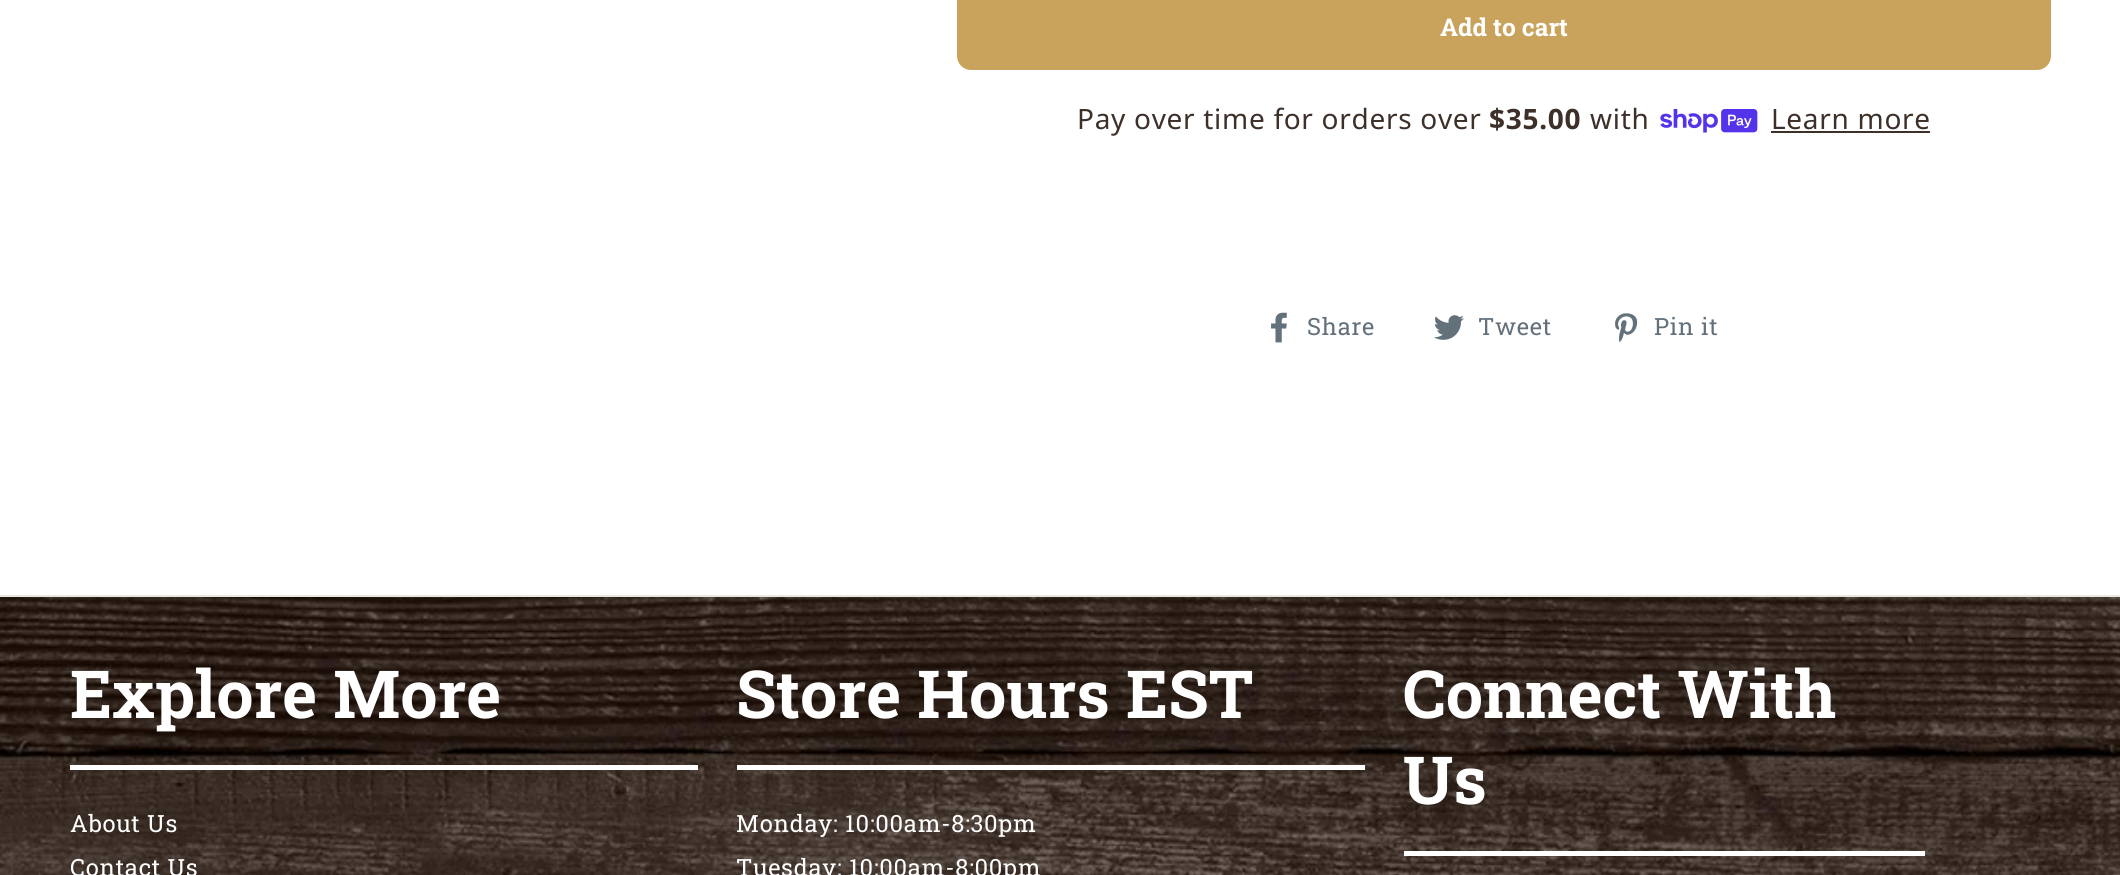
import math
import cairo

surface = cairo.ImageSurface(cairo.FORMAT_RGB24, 2120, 875)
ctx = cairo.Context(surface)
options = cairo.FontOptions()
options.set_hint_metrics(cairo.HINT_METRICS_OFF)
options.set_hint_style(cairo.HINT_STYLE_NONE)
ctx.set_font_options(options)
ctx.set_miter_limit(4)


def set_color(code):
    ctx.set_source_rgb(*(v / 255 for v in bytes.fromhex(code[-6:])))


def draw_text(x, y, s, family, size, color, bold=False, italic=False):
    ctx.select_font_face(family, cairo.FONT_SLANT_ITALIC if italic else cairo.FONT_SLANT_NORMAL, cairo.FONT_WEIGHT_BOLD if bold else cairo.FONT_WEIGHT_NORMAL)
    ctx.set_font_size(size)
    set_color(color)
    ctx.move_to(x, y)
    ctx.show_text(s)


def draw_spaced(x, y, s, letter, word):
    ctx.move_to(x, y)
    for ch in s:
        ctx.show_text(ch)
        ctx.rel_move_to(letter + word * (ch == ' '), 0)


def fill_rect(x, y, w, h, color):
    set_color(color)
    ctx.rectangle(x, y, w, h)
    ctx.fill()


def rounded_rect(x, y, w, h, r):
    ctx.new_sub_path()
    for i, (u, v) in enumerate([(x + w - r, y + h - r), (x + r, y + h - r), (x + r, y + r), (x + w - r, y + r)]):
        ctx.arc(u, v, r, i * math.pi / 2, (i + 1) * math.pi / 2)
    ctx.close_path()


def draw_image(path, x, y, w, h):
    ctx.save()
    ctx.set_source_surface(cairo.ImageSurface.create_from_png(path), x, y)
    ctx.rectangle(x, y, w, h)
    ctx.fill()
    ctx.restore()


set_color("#ffffff")
ctx.paint()
set_color("#c9a35c")
rounded_rect(957, -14, 1094, 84, 14)
ctx.fill()
draw_text(1440, 36, "Add to cart", "Roboto Slab", 24.5, "#ffffff", bold=True)
ctx.select_font_face("Noto Sans")
ctx.set_font_size(28)
set_color("#3d3029")
draw_spaced(1077, 129, "Pay over time for orders over", 0.7, 0)
ctx.select_font_face("Noto Sans", cairo.FONT_SLANT_NORMAL, cairo.FONT_WEIGHT_BOLD)
draw_spaced(1489, 129, "$35.00", 0.7, 0)
ctx.select_font_face("Noto Sans")
draw_spaced(1590, 129, "with", 0.7, 0)
draw_image("assets/img1.png", 1660, 109, 98, 24)
draw_spaced(1771, 129, "Learn more", 0.7, 0)
fill_rect(1771, 131, 159, 2, "#3d3029")
draw_image("assets/img2.png", 1271, 312, 16, 31)
ctx.select_font_face("Roboto Slab")
ctx.set_font_size(23.75)
set_color("#63717b")
draw_spaced(1307, 335, "Share", 0.7, 0)
draw_image("assets/img3.png", 1434, 315, 30, 25)
draw_spaced(1478, 335, "Tweet", 0.7, 0)
draw_image("assets/img4.png", 1615, 313, 23, 30)
draw_spaced(1654, 335, "Pin it", 0.7, 0)
draw_image("assets/img5.png", 0, 597, 2120, 278)
fill_rect(0, 595, 2120, 2, "#e8e8e1")
draw_text(70, 718, "Explore More", "Roboto Slab", 66.25, "#ffffff", bold=True)
fill_rect(70, 765, 628, 5, "#ffffff")
ctx.select_font_face("Roboto Slab")
ctx.set_font_size(23.75)
draw_spaced(70, 832, "About Us", 0.7, 0)
draw_spaced(70, 876, "Contact Us", 0.7, 0)
draw_text(736, 718, "Store Hours EST", "Roboto Slab", 66.25, "#ffffff", bold=True)
fill_rect(737, 765, 628, 5, "#ffffff")
ctx.select_font_face("Roboto Slab")
ctx.set_font_size(23.75)
draw_spaced(736, 832, "Monday: 10:00am-8:30pm", 0.7, 0)
draw_spaced(736, 876, "Tuesday: 10:00am-8:00pm", 0.7, 0)
draw_text(1403, 718, "Connect With", "Roboto Slab", 66.25, "#ffffff", bold=True)
draw_text(1403, 804, "Us", "Roboto Slab", 66.25, "#ffffff", bold=True)
fill_rect(1404, 851, 521, 5, "#ffffff")
surface.write_to_png("output.png")
